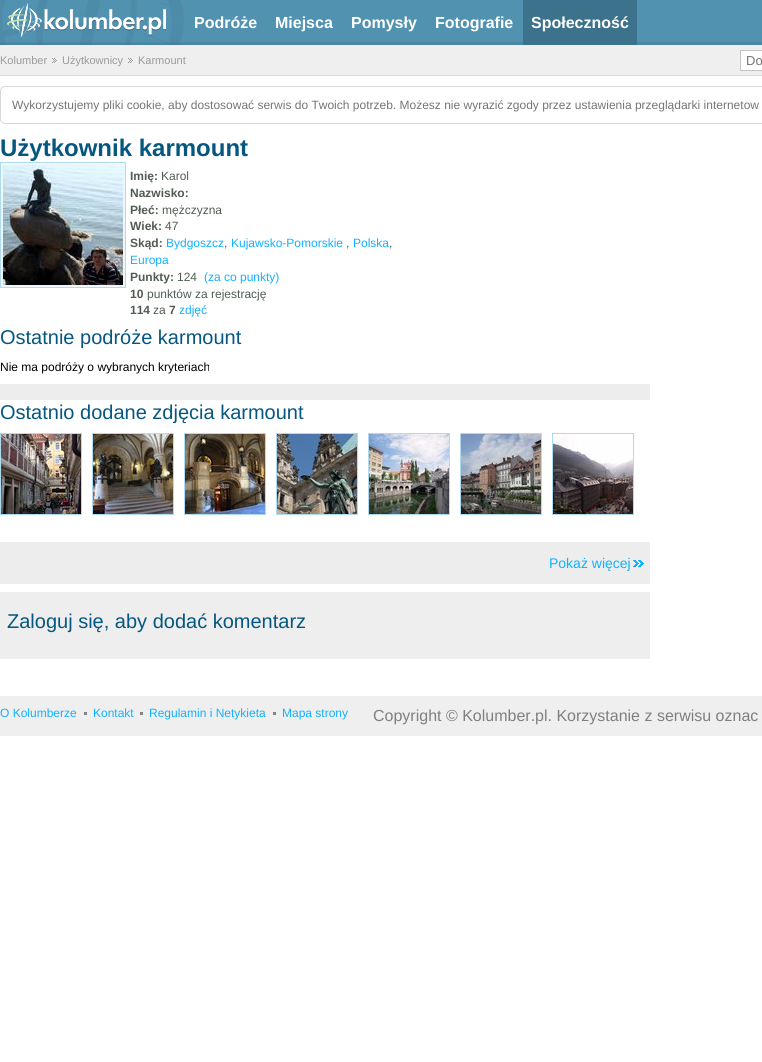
import math
import cairo

surface = cairo.ImageSurface(cairo.FORMAT_RGB24, 762, 1062)
ctx = cairo.Context(surface)
options = cairo.FontOptions()
options.set_hint_metrics(cairo.HINT_METRICS_OFF)
options.set_hint_style(cairo.HINT_STYLE_NONE)
ctx.set_font_options(options)
ctx.set_miter_limit(4)


def set_color(code):
    ctx.set_source_rgb(*(v / 255 for v in bytes.fromhex(code[-6:])))


def draw_text(x, y, s, family, size, color, bold=False, italic=False):
    ctx.select_font_face(family, cairo.FONT_SLANT_ITALIC if italic else cairo.FONT_SLANT_NORMAL, cairo.FONT_WEIGHT_BOLD if bold else cairo.FONT_WEIGHT_NORMAL)
    ctx.set_font_size(size)
    set_color(color)
    ctx.move_to(x, y)
    ctx.show_text(s)


def fill_rect(x, y, w, h, color):
    set_color(color)
    ctx.rectangle(x, y, w, h)
    ctx.fill()


def rounded_rect(x, y, w, h, r):
    ctx.new_sub_path()
    for i, (u, v) in enumerate([(x + w - r, y + h - r), (x + r, y + h - r), (x + r, y + r), (x + w - r, y + r)]):
        ctx.arc(u, v, r, i * math.pi / 2, (i + 1) * math.pi / 2)
    ctx.close_path()


def draw_image(path, x, y, w, h):
    ctx.save()
    ctx.set_source_surface(cairo.ImageSurface.create_from_png(path), x, y)
    ctx.rectangle(x, y, w, h)
    ctx.fill()
    ctx.restore()


set_color("#ffffff")
ctx.paint()
fill_rect(184, 0, 578, 42, "#5192b1")
fill_rect(184, 42, 578, 3, "#4b87a3")
draw_image("assets/img1.png", 0, 0, 184, 45)
draw_text(194, 28, "Podróże", "Liberation Sans", 16, "#ffffff", bold=True)
draw_text(275, 28, "Miejsca", "Liberation Sans", 16, "#ffffff", bold=True)
draw_text(351, 28, "Pomysły", "Liberation Sans", 16, "#ffffff", bold=True)
draw_text(435, 28, "Fotografie", "Liberation Sans", 16, "#ffffff", bold=True)
fill_rect(523, 0, 114, 45, "#3c728c")
draw_text(531, 28, "Społeczność", "Liberation Sans", 16, "#ffffff", bold=True)
fill_rect(0, 45, 762, 30, "#efefef")
fill_rect(0, 75, 762, 1, "#d9d9d9")
draw_text(0, 64, "Kolumber", "Liberation Sans", 11, "#999999")
draw_image("assets/img2.png", 52, 58, 5, 5)
draw_text(62, 64, "Użytkownicy", "Liberation Sans", 11, "#999999")
draw_image("assets/img2.png", 128, 58, 5, 5)
draw_text(138, 64, "Karmount", "Liberation Sans", 11, "#999999")
set_color("#ffffff")
ctx.rectangle(740.5, 50.5, 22, 20)
ctx.fill_preserve()
set_color("#c4c4c4")
ctx.set_line_width(1)
ctx.stroke()
draw_text(746, 65, "Do", "Liberation Sans", 13, "#757575")
rounded_rect(0.5, 86.5, 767, 37, 4.5)
set_color("#d8d8d8")
ctx.stroke()
draw_text(12, 109, "Wykorzystujemy pliki cookie, aby dostosować serwis do Twoich potrzeb. Możesz nie wyrazić zgody przez ustawienia przeglądarki internetow", "Liberation Sans", 12, "#757575")
draw_text(0, 156, "Użytkownik karmount", "Liberation Sans", 24, "#05577f", bold=True)
set_color("#edf7fc")
ctx.rectangle(0.5, 162.5, 125, 125)
ctx.fill_preserve()
set_color("#aedbf0")
ctx.stroke()
draw_image("assets/img3.png", 3, 165, 120, 120)
draw_text(130, 180, "Imię:", "Liberation Sans", 12, "#505c52", bold=True)
draw_text(161, 180, "Karol", "Liberation Sans", 12, "#505c52")
draw_text(130, 197, "Nazwisko:", "Liberation Sans", 12, "#505c52", bold=True)
draw_text(130, 214, "Płeć:", "Liberation Sans", 12, "#505c52", bold=True)
draw_text(162, 214, "mężczyzna", "Liberation Sans", 12, "#505c52")
draw_text(130, 230, "Wiek:", "Liberation Sans", 12, "#505c52", bold=True)
draw_text(165, 230, "47", "Liberation Sans", 12, "#505c52")
draw_text(130, 247, "Skąd:", "Liberation Sans", 12, "#505c52", bold=True)
draw_text(166, 247, "Bydgoszcz", "Liberation Sans", 12, "#12b1ff")
draw_text(224, 247, ",", "Liberation Sans", 12, "#505c52")
draw_text(231, 247, "Kujawsko-Pomorskie", "Liberation Sans", 12, "#12b1ff")
draw_text(346, 247, ",", "Liberation Sans", 12, "#505c52")
draw_text(353, 247, "Polska", "Liberation Sans", 12, "#12b1ff")
draw_text(389, 247, ",", "Liberation Sans", 12, "#505c52")
draw_text(130, 264, "Europa", "Liberation Sans", 12, "#12b1ff")
draw_text(130, 281, "Punkty:", "Liberation Sans", 12, "#505c52", bold=True)
draw_text(177, 281, "124", "Liberation Sans", 12, "#505c52")
draw_text(204, 281, "(za co punkty)", "Liberation Sans", 12, "#12b1ff")
draw_text(130, 298, "10", "Liberation Sans", 12, "#505c52", bold=True)
draw_text(147, 298, "punktów za rejestrację", "Liberation Sans", 12, "#505c52")
draw_text(130, 314, "114", "Liberation Sans", 12, "#505c52", bold=True)
draw_text(153, 314, "za", "Liberation Sans", 12, "#505c52")
draw_text(169, 314, "7", "Liberation Sans", 12, "#505c52", bold=True)
draw_text(179, 314, "zdjęć", "Liberation Sans", 12, "#12b1ff")
draw_text(0, 344, "Ostatnie podróże karmount", "Liberation Sans", 20, "#05577f")
draw_text(0, 371, "Nie ma podróży o wybranych kryteriach", "Liberation Sans", 12, "#000000")
fill_rect(0, 384, 650, 16, "#ededed")
draw_text(0, 419, "Ostatnio dodane zdjęcia karmount", "Liberation Sans", 20, "#05577f")
ctx.rectangle(0.5, 433.5, 81, 81)
set_color("#aedbf0")
ctx.stroke()
draw_image("assets/img4.png", 1, 434, 80, 80)
ctx.rectangle(92.5, 433.5, 81, 81)
ctx.stroke()
draw_image("assets/img5.png", 93, 434, 80, 80)
ctx.rectangle(184.5, 433.5, 81, 81)
ctx.stroke()
draw_image("assets/img6.png", 185, 434, 80, 80)
ctx.rectangle(276.5, 433.5, 81, 81)
ctx.stroke()
draw_image("assets/img7.png", 277, 434, 80, 80)
ctx.rectangle(368.5, 433.5, 81, 81)
ctx.stroke()
draw_image("assets/img8.png", 369, 434, 80, 80)
ctx.rectangle(460.5, 433.5, 81, 81)
ctx.stroke()
draw_image("assets/img9.png", 461, 434, 80, 80)
ctx.rectangle(552.5, 433.5, 81, 81)
ctx.stroke()
draw_image("assets/img10.png", 553, 434, 80, 80)
fill_rect(0, 542, 650, 42, "#ededed")
draw_image("assets/img11.png", 633, 560, 11, 7)
draw_text(549, 568, "Pokaż więcej", "Liberation Sans", 14, "#12b1ff")
fill_rect(0, 592, 650, 67, "#eeeeee")
draw_text(7, 628, "Zaloguj się, aby dodać komentarz", "Liberation Sans", 20, "#05577f")
fill_rect(0, 696, 762, 40, "#efefef")
draw_text(0, 717, "O Kolumberze", "Liberation Sans", 12, "#12b1ff")
fill_rect(84, 712, 3, 3, "#848484")
draw_text(93, 717, "Kontakt", "Liberation Sans", 12, "#12b1ff")
fill_rect(140, 712, 3, 3, "#848484")
draw_text(149, 717, "Regulamin i Netykieta", "Liberation Sans", 12, "#12b1ff")
fill_rect(273, 712, 3, 3, "#848484")
draw_text(282, 717, "Mapa strony", "Liberation Sans", 12, "#12b1ff")
draw_text(373, 721, "Copyright © Kolumber.pl. Korzystanie z serwisu oznac", "Liberation Sans", 16, "#7f7f7f")
surface.write_to_png("output.png")
